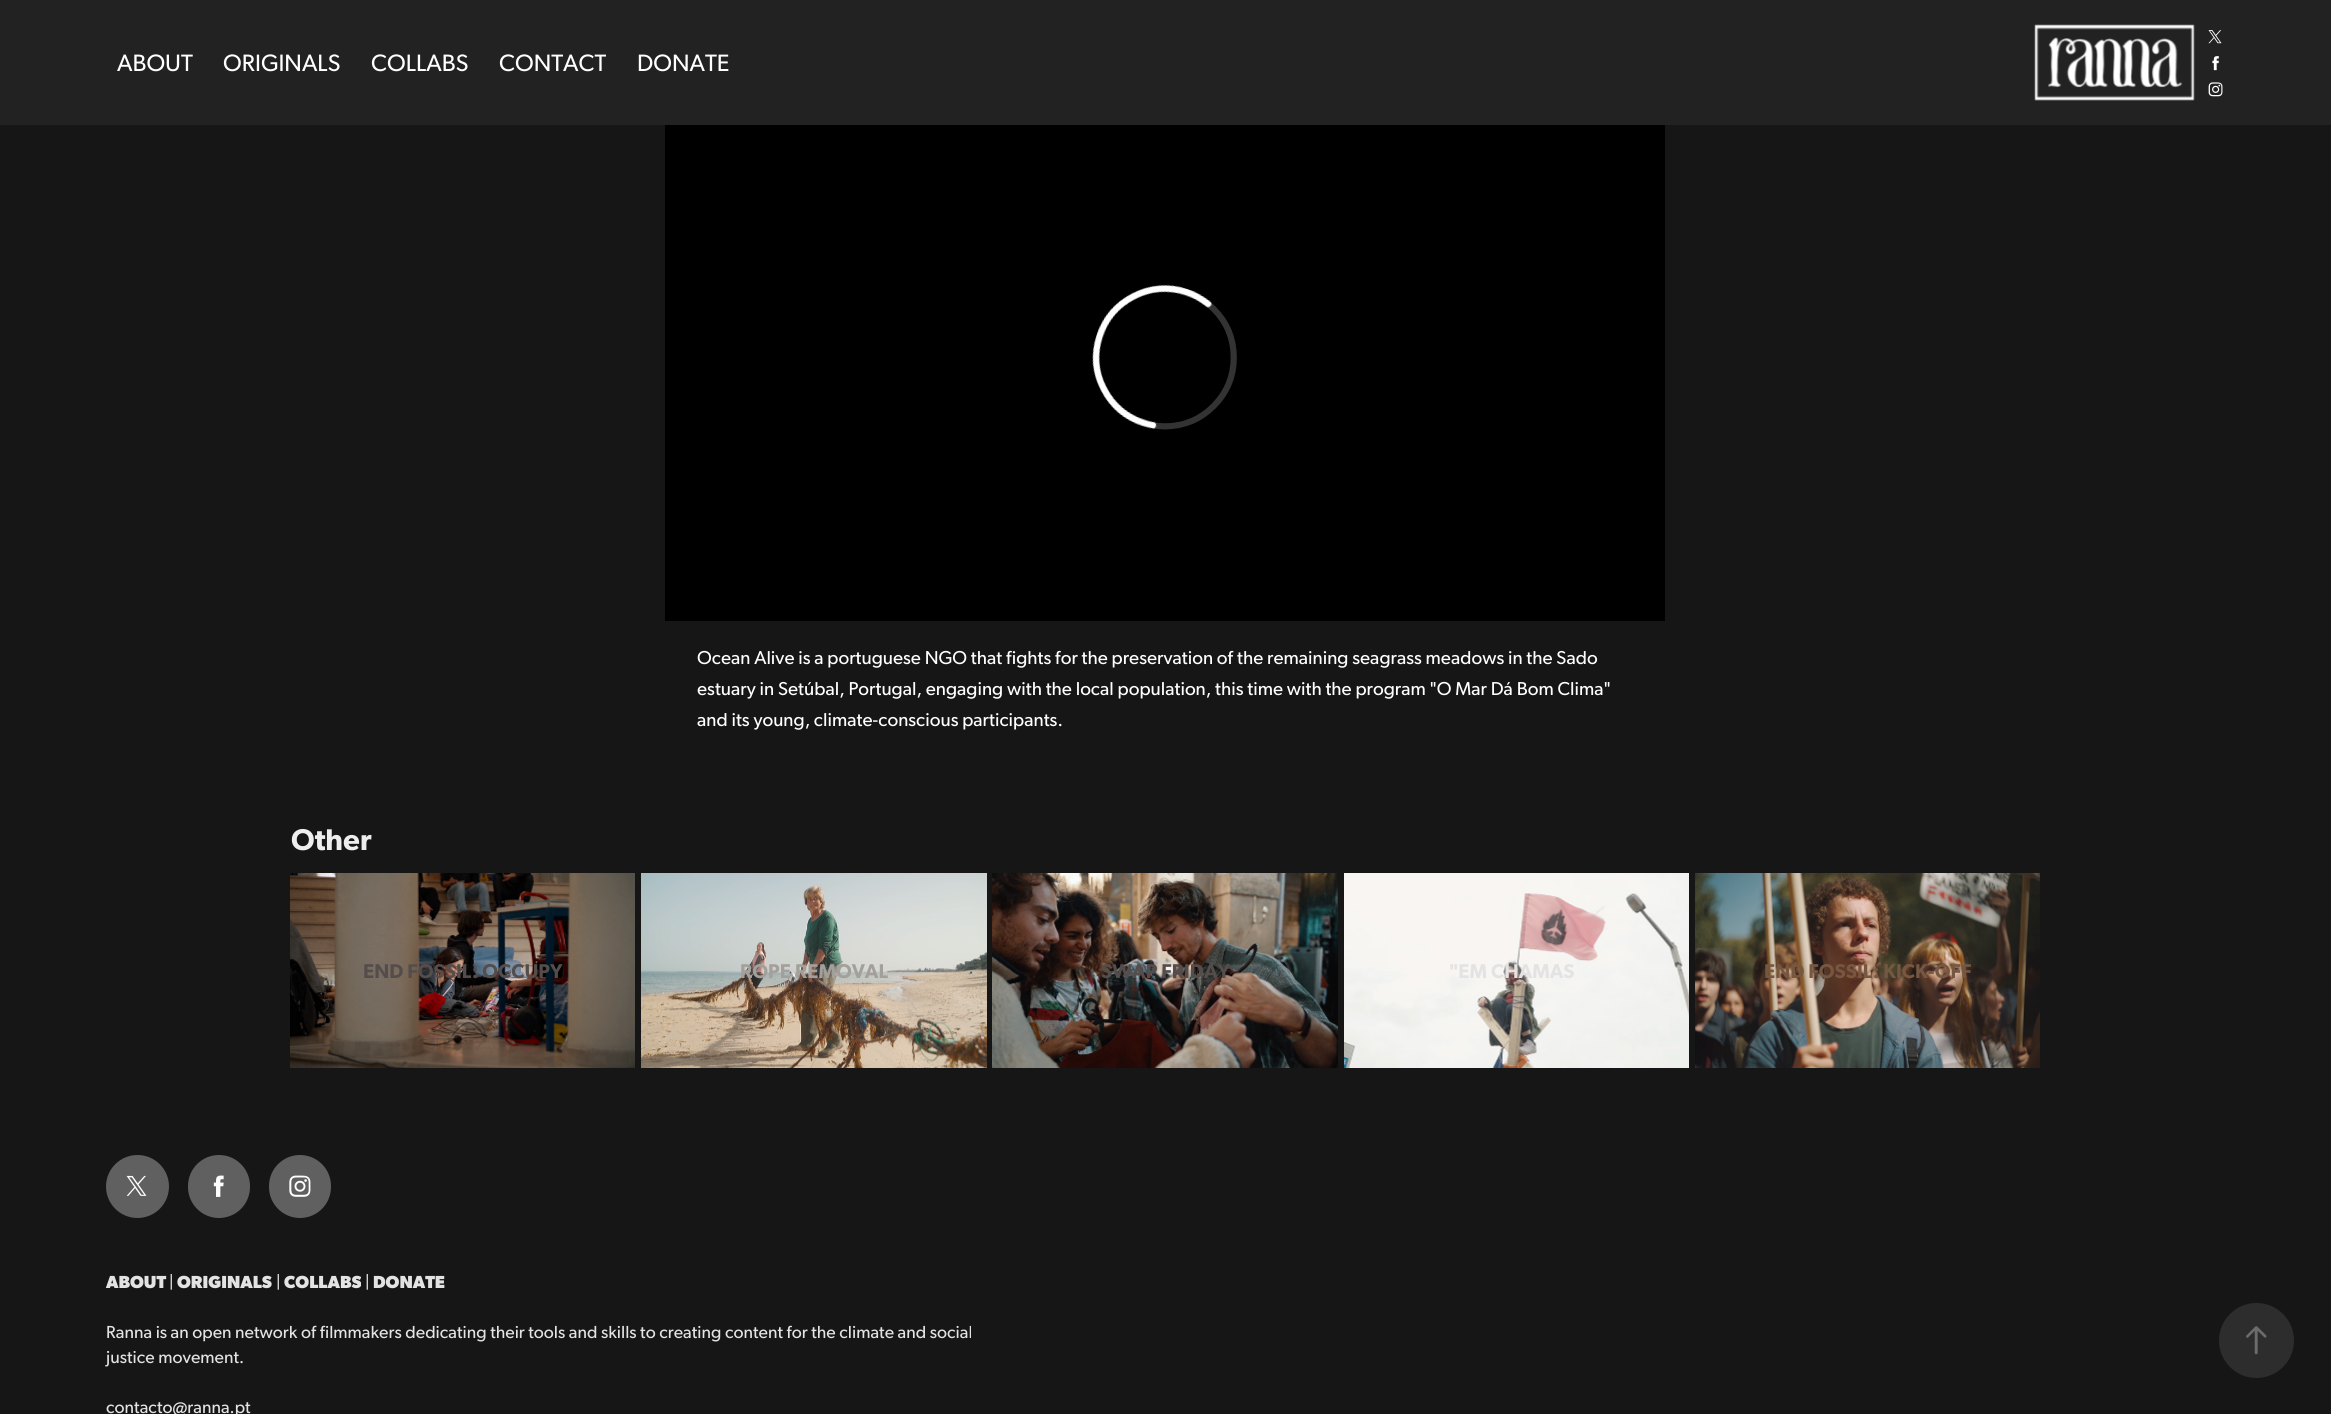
import math
import cairo

surface = cairo.ImageSurface(cairo.FORMAT_RGB24, 2331, 1414)
ctx = cairo.Context(surface)
options = cairo.FontOptions()
options.set_hint_metrics(cairo.HINT_METRICS_OFF)
options.set_hint_style(cairo.HINT_STYLE_NONE)
ctx.set_font_options(options)
ctx.set_miter_limit(4)


def set_color(code):
    ctx.set_source_rgb(*(v / 255 for v in bytes.fromhex(code[-6:])))


def draw_text(x, y, s, family, size, color, bold=False, italic=False):
    ctx.select_font_face(family, cairo.FONT_SLANT_ITALIC if italic else cairo.FONT_SLANT_NORMAL, cairo.FONT_WEIGHT_BOLD if bold else cairo.FONT_WEIGHT_NORMAL)
    ctx.set_font_size(size)
    set_color(color)
    ctx.move_to(x, y)
    ctx.show_text(s)


def fill_rect(x, y, w, h, color):
    set_color(color)
    ctx.rectangle(x, y, w, h)
    ctx.fill()


def rounded_rect(x, y, w, h, r):
    ctx.new_sub_path()
    for i, (u, v) in enumerate([(x + w - r, y + h - r), (x + r, y + h - r), (x + r, y + r), (x + w - r, y + r)]):
        ctx.arc(u, v, r, i * math.pi / 2, (i + 1) * math.pi / 2)
    ctx.close_path()


def draw_image(path, x, y, w, h):
    ctx.save()
    ctx.set_source_surface(cairo.ImageSurface.create_from_png(path), x, y)
    ctx.rectangle(x, y, w, h)
    ctx.fill()
    ctx.restore()


set_color("#161616")
ctx.paint()
fill_rect(0, 0, 2331, 125, "#222222")
draw_text(117, 71, "ABOUT", "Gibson", 23.75, "#ffffff")
draw_text(223, 71, "ORIGINALS", "Gibson", 23.75, "#ffffff")
draw_text(371, 71, "COLLABS", "Gibson", 23.75, "#ffffff")
draw_text(499, 71, "CONTACT", "Gibson", 23.75, "#ffffff")
draw_text(637, 71, "DONATE", "Gibson", 23.75, "#ffffff")
draw_image("assets/img1.png", 2034, 24, 161, 77)
draw_image("assets/img2.png", 2208, 30, 14, 14)
draw_image("assets/img3.png", 2212, 56, 7, 15)
draw_image("assets/img4.png", 2208, 82, 15, 15)
draw_image("assets/img5.png", 665, 125, 1000, 496)
draw_text(697, 664, "Ocean Alive is a portuguese NGO that fights for the preservation of the remaining seagrass meadows in the Sado", "Gibson", 18.75, "#ffffff")
draw_text(697, 695, "estuary in Setúbal, Portugal, engaging with the local population, this time with the program \"O Mar Dá Bom Clima\"", "Gibson", 18.75, "#ffffff")
draw_text(697, 726, "and its young, climate-conscious participants.", "Gibson", 18.75, "#ffffff")
draw_text(291, 850, "Other", "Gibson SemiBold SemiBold", 30, "#eeeeee")
draw_image("assets/img6.png", 290, 873, 345, 195)
draw_text(363, 978, "END FOSSIL: OCCUPY", "Gibson SemiBold SemiBold", 20, "#554d4b")
draw_image("assets/img7.png", 641, 873, 346, 195)
draw_text(740, 978, "ROPE REMOVAL", "Gibson SemiBold SemiBold", 20, "#a3a09b")
draw_image("assets/img8.png", 992, 873, 346, 195)
draw_text(1101, 978, "SWAP FRIDAY", "Gibson SemiBold SemiBold", 20, "#554d4b")
draw_image("assets/img9.png", 1344, 873, 345, 195)
draw_text(1449, 978, "\"EM CHAMAS", "Gibson SemiBold SemiBold", 20, "#e3e3e3")
draw_image("assets/img10.png", 1695, 873, 345, 195)
draw_text(1764, 978, "END FOSSIL: KICK-OFF", "Gibson SemiBold SemiBold", 20, "#755742")
set_color("#2d2d2d")
ctx.new_path()
ctx.arc(2256.5, 1340.5, 37.5, 0, 2 * math.pi)
ctx.fill()
draw_image("assets/img11.png", 2246, 1326, 21, 29)
set_color("#606060")
ctx.arc(137.5, 1186.5, 31.5, 0, 2 * math.pi)
ctx.fill()
draw_image("assets/img12.png", 126, 1175, 21, 21)
rounded_rect(188, 1155, 62, 63, 31)
ctx.fill()
draw_image("assets/img13.png", 213, 1175, 11, 22)
rounded_rect(269, 1155, 62, 63, 31)
ctx.fill()
draw_image("assets/img14.png", 289, 1175, 22, 22)
draw_text(106, 1288, "ABOUT", "Gibson", 17.5, "#e3e3e3", bold=True)
draw_text(169, 1288, "|", "Gibson", 17.5, "#e3e3e3")
draw_text(177, 1288, "ORIGINALS", "Gibson", 17.5, "#e3e3e3", bold=True)
draw_text(276, 1288, "|", "Gibson", 17.5, "#e3e3e3")
draw_text(284, 1288, "COLLABS", "Gibson", 17.5, "#e3e3e3", bold=True)
draw_text(365, 1288, "|", "Gibson", 17.5, "#e3e3e3")
draw_text(373, 1288, "DONATE", "Gibson", 17.5, "#e3e3e3", bold=True)
draw_text(106, 1338, "Ranna is an open network of filmmakers dedicating their tools and skills to creating content for the climate and social", "Gibson", 17.5, "#e3e3e3")
draw_text(106, 1363, "justice movement.", "Gibson", 17.5, "#e3e3e3")
draw_text(106, 1413, "contacto@ranna.pt", "Gibson", 17.5, "#e3e3e3")
surface.write_to_png("output.png")
